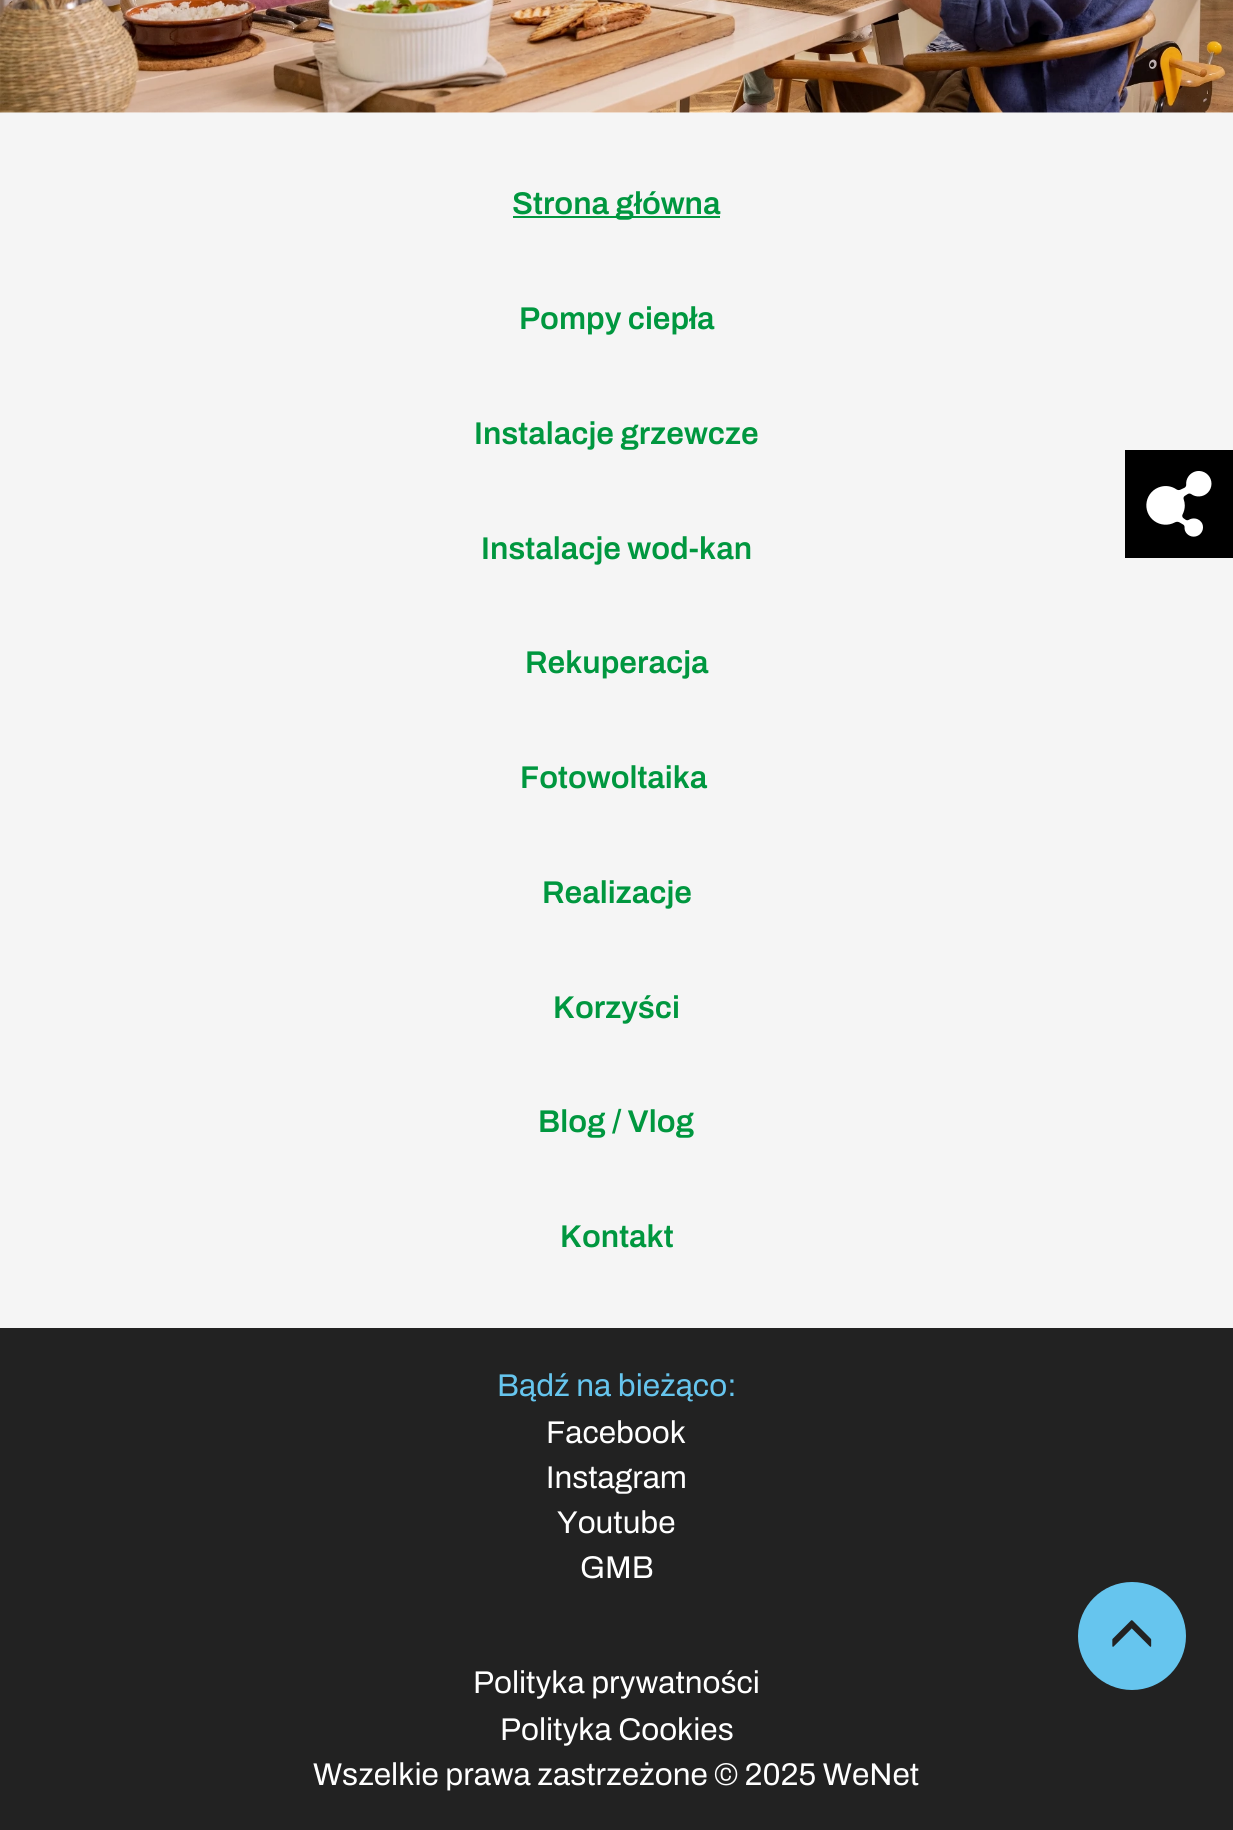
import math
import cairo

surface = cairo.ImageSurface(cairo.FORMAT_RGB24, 1233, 1830)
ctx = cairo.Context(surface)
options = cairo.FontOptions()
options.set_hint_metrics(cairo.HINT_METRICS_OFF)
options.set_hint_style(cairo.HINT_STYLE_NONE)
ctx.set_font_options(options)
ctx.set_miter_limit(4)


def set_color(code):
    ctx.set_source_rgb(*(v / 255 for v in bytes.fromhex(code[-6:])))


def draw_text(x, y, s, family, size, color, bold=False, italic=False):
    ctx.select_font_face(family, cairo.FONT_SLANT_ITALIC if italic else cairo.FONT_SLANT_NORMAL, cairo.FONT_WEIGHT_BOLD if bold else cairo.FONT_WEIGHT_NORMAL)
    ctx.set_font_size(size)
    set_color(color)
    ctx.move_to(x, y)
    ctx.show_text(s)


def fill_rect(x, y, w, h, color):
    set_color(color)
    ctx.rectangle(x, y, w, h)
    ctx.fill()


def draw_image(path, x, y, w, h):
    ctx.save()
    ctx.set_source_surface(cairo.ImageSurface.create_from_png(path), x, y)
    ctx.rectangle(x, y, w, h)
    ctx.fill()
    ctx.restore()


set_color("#ffffff")
ctx.paint()
draw_image("assets/img1.png", 0, 0, 1233, 113)
fill_rect(0, 113, 1233, 1215, "#f5f5f5")
fill_rect(513, 216, 207, 2, "#00973f")
draw_text(512, 214, "Strona główna", "Archivo SemiBold", 31.5, "#00973f")
draw_text(519, 329, "Pompy ciepła", "Archivo SemiBold", 31.5, "#00973f")
draw_text(474, 444, "Instalacje grzewcze", "Archivo SemiBold", 31.5, "#00973f")
draw_text(481, 559, "Instalacje wod-kan", "Archivo SemiBold", 31.5, "#00973f")
draw_text(525, 673, "Rekuperacja", "Archivo SemiBold", 31.5, "#00973f")
draw_text(520, 788, "Fotowoltaika", "Archivo SemiBold", 31.5, "#00973f")
draw_text(542, 903, "Realizacje", "Archivo SemiBold", 31.5, "#00973f")
draw_text(553, 1018, "Korzyści", "Archivo SemiBold", 31.5, "#00973f")
draw_text(538, 1132, "Blog / Vlog", "Archivo SemiBold", 31.5, "#00973f")
draw_text(560, 1247, "Kontakt", "Archivo SemiBold", 31.5, "#00973f")
fill_rect(0, 1328, 1233, 502, "#222222")
draw_text(497, 1396, "Bądź na bieżąco:", "Archivo", 31.5, "#66c5ee")
draw_text(546, 1443, "Facebook", "Archivo", 31.5, "#ffffff")
draw_text(546, 1488, "Instagram", "Archivo", 31.5, "#ffffff")
draw_text(557, 1533, "Youtube", "Archivo", 31.5, "#ffffff")
draw_text(580, 1578, "GMB", "Archivo", 31.5, "#ffffff")
draw_text(473, 1693, "Polityka prywatności", "Archivo", 31.5, "#ffffff")
draw_text(500, 1740, "Polityka Cookies", "Archivo", 31.5, "#ffffff")
draw_text(313, 1785, "Wszelkie prawa zastrzeżone © 2025 WeNet", "Archivo", 31.5, "#ffffff")
fill_rect(1125, 450, 108, 108, "#000000")
draw_image("assets/img2.png", 1146, 471, 66, 66)
set_color("#66c5ee")
ctx.arc(1132, 1636, 54, 0, 2 * math.pi)
ctx.fill()
draw_image("assets/img3.png", 1112, 1620, 40, 27)
surface.write_to_png("output.png")
